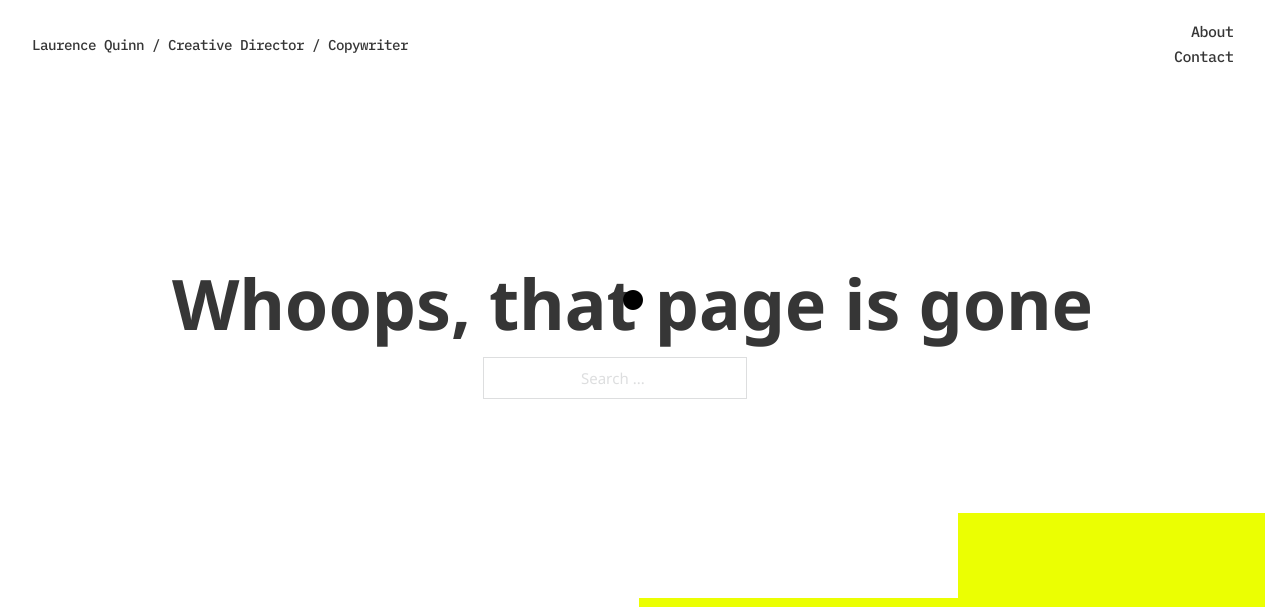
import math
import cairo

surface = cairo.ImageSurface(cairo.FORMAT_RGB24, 1265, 607)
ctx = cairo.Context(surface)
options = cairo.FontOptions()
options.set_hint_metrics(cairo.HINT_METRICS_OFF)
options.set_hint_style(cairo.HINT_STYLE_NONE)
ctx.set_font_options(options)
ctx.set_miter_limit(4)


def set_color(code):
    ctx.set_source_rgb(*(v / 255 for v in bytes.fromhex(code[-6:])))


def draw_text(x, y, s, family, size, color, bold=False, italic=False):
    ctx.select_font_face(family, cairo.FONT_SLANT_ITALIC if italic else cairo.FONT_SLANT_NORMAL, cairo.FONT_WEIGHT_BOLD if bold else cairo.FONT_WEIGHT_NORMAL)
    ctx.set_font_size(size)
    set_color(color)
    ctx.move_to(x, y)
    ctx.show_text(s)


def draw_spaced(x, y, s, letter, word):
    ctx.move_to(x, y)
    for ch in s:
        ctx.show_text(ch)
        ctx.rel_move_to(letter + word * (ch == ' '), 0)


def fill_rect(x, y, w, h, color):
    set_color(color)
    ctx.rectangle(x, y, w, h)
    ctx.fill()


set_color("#ffffff")
ctx.paint()
ctx.select_font_face("IBM Plex Mono Medium")
ctx.set_font_size(14.25)
set_color("#363636")
draw_spaced(32, 50, "Laurence Quinn / Creative Director / Copywriter", -0.55, 0)
ctx.set_font_size(15)
draw_spaced(1191, 37, "About", -0.5, 0)
draw_spaced(1174, 62, "Contact", -0.5, 0)
fill_rect(639, 598, 319, 9, "#ebff02")
fill_rect(958, 513, 307, 94, "#ebff02")
draw_text(172, 330, "Whoops, that page is gone", "Noto Sans", 69.75, "#363636", bold=True)
set_color("#000000")
ctx.new_path()
ctx.arc(633, 300, 10, 0, 2 * math.pi)
ctx.fill()
ctx.rectangle(483.5, 357.5, 263, 41)
set_color("#dddedf")
ctx.set_line_width(1)
ctx.stroke()
draw_text(581, 384, "Search ...", "Noto Sans", 15, "#dddedf")
surface.write_to_png("output.png")
